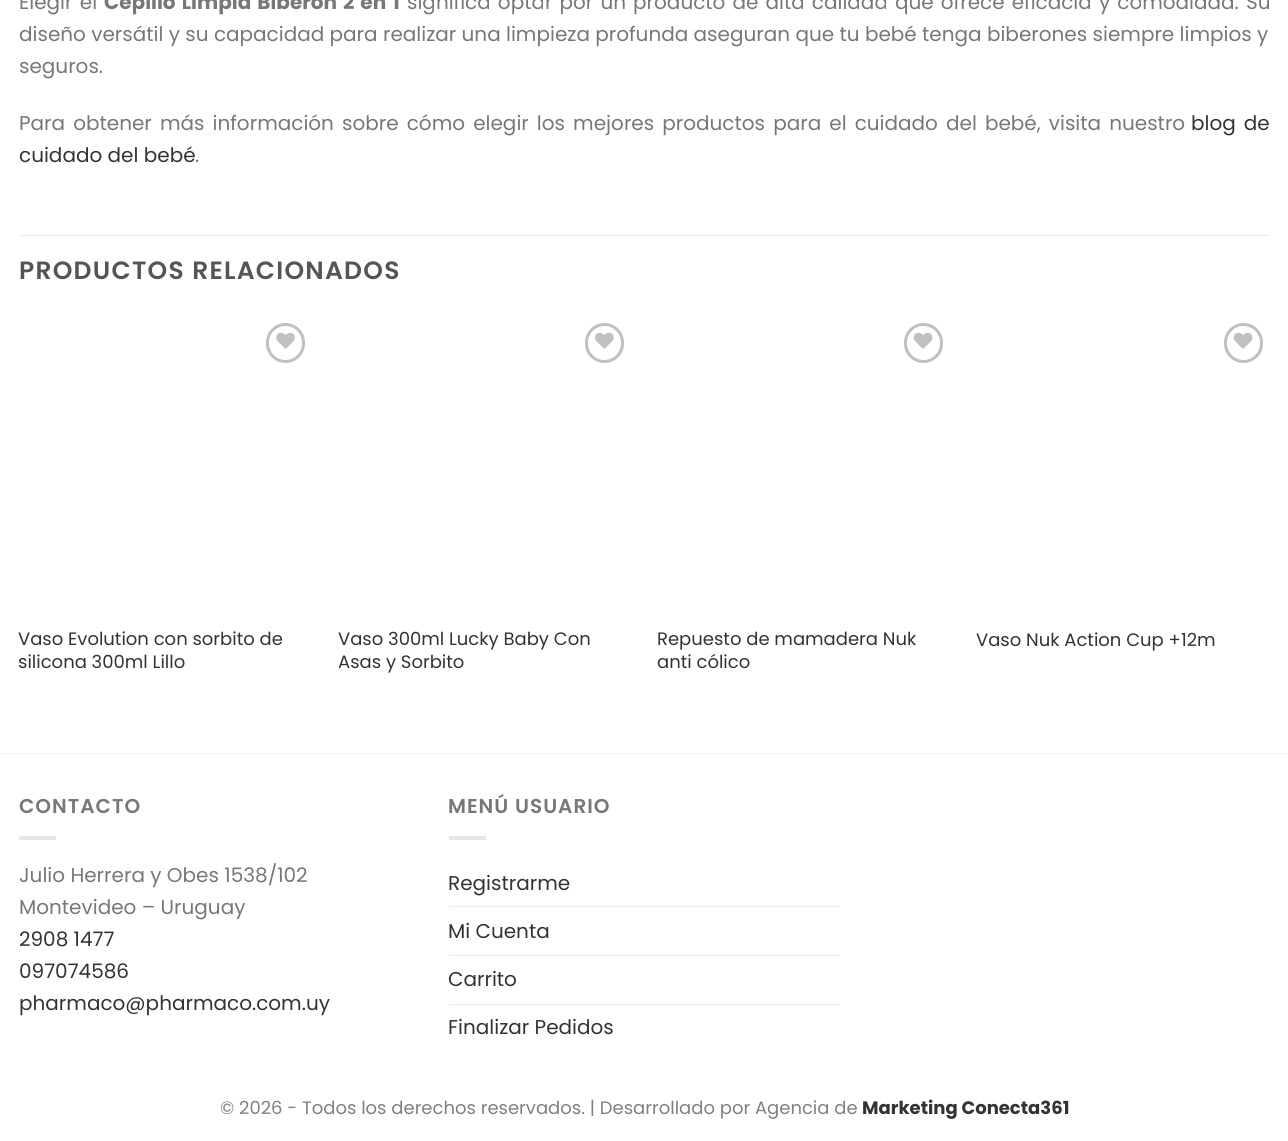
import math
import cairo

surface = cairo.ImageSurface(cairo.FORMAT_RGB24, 1288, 1141)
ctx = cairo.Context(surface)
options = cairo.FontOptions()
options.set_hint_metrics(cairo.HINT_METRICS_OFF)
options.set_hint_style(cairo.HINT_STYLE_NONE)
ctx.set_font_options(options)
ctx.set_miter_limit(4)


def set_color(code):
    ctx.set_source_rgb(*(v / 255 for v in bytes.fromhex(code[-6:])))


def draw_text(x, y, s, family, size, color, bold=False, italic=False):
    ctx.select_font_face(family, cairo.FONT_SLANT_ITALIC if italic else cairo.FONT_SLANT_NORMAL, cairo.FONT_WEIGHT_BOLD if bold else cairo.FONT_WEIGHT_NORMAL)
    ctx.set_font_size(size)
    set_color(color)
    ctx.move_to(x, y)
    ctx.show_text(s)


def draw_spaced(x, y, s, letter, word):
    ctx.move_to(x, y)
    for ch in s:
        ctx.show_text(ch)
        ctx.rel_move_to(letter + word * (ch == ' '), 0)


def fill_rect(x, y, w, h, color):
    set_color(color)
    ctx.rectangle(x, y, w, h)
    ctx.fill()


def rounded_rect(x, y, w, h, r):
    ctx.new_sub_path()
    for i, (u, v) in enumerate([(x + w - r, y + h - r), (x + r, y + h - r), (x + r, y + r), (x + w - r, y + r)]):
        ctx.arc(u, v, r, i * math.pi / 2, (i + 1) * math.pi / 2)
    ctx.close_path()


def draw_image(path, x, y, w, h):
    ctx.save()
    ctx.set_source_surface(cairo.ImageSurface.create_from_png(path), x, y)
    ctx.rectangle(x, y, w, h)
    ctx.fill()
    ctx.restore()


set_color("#ffffff")
ctx.paint()
ctx.select_font_face("Poppins")
ctx.set_font_size(20)
set_color("#777777")
draw_spaced(19, 9, "Elegir el", 0, 2)
ctx.select_font_face("Poppins", cairo.FONT_SLANT_NORMAL, cairo.FONT_WEIGHT_BOLD)
draw_spaced(104, 9, "Cepillo Limpia Biberón 2 en 1", 0, 1.75)
ctx.select_font_face("Poppins")
draw_spaced(407, 9, "significa optar por un producto de alta calidad que ofrece eficacia y comodidad. Su", 0, 1.75)
draw_text(19, 41, "diseño versátil y su capacidad para realizar una limpieza profunda aseguran que tu bebé tenga biberones siempre limpios y", "Poppins", 20, "#777777")
draw_text(19, 73, "seguros.", "Poppins", 20, "#777777")
draw_spaced(19, 130, "Para obtener más información sobre cómo elegir los mejores productos para el cuidado del bebé, visita nuestro", 0, 2.75)
set_color("#333333")
draw_spaced(1191, 130, "blog de", 0, 2.75)
draw_text(19, 162, "cuidado del bebé", "Poppins", 20, "#333333")
draw_text(195, 162, ".", "Poppins", 20, "#777777")
fill_rect(19, 235, 1251, 1, "#ececec")
ctx.select_font_face("Poppins SemiBold")
ctx.set_font_size(25)
set_color("#555555")
draw_spaced(19, 279, "PRODUCTOS RELACIONADOS", 1.25, 0)
rounded_rect(267.5, 324.5, 36, 37, 18)
set_color("#c0c0c0")
ctx.set_line_width(3)
ctx.stroke()
draw_image("assets/img1.png", 276, 332, 19, 17)
draw_text(18, 645, "Vaso Evolution con sorbito de", "Poppins", 18, "#333333")
draw_text(18, 668, "silicona 300ml Lillo", "Poppins", 18, "#333333")
rounded_rect(586.5, 324.5, 36, 37, 18)
set_color("#c0c0c0")
ctx.stroke()
draw_image("assets/img2.png", 595, 332, 19, 17)
draw_text(338, 645, "Vaso 300ml Lucky Baby Con", "Poppins", 18, "#333333")
draw_text(338, 668, "Asas y Sorbito", "Poppins", 18, "#333333")
rounded_rect(905.5, 324.5, 36, 37, 18)
set_color("#c0c0c0")
ctx.stroke()
draw_image("assets/img3.png", 913, 332, 20, 17)
draw_text(657, 645, "Repuesto de mamadera Nuk", "Poppins", 18, "#333333")
draw_text(657, 668, "anti cólico", "Poppins", 18, "#333333")
rounded_rect(1225.5, 324.5, 36, 37, 18)
set_color("#c0c0c0")
ctx.stroke()
draw_image("assets/img3.png", 1233, 332, 20, 17)
draw_text(976, 646, "Vaso Nuk Action Cup +12m", "Poppins", 18, "#333333")
fill_rect(0, 753, 1288, 1, "#f2f2f2")
ctx.select_font_face("Poppins SemiBold")
ctx.set_font_size(20)
set_color("#777777")
draw_spaced(19, 813, "CONTACTO", 1, 0)
fill_rect(19, 836, 37, 4, "#e6e6e6")
draw_text(19, 882, "Julio Herrera y Obes 1538/102", "Poppins", 20, "#777777")
draw_text(19, 914, "Montevideo – Uruguay", "Poppins", 20, "#777777")
draw_text(19, 946, "2908 1477", "Poppins", 20, "#333333")
draw_text(19, 978, "097074586", "Poppins", 20, "#333333")
draw_text(19, 1010, "pharmaco@pharmaco.com.uy", "Poppins", 20, "#333333")
ctx.select_font_face("Poppins SemiBold")
set_color("#777777")
draw_spaced(448, 813, "MENÚ USUARIO", 1, 0)
fill_rect(449, 836, 37, 4, "#e6e6e6")
draw_text(448, 890, "Registrarme", "Poppins", 20, "#333333")
fill_rect(449, 906, 391, 1, "#ececec")
draw_text(448, 938, "Mi Cuenta", "Poppins", 20, "#333333")
fill_rect(449, 955, 391, 1, "#ececec")
draw_text(448, 986, "Carrito", "Poppins", 20, "#333333")
fill_rect(449, 1004, 391, 1, "#ececec")
draw_text(448, 1034, "Finalizar Pedidos", "Poppins", 20, "#333333")
draw_text(220, 1114, "© 2026 - Todos los derechos reservados. | Desarrollado por Agencia de", "Poppins", 18, "#808080")
draw_text(862, 1114, "Marketing Conecta361", "Poppins", 18, "#333333", bold=True)
surface.write_to_png("output.png")
